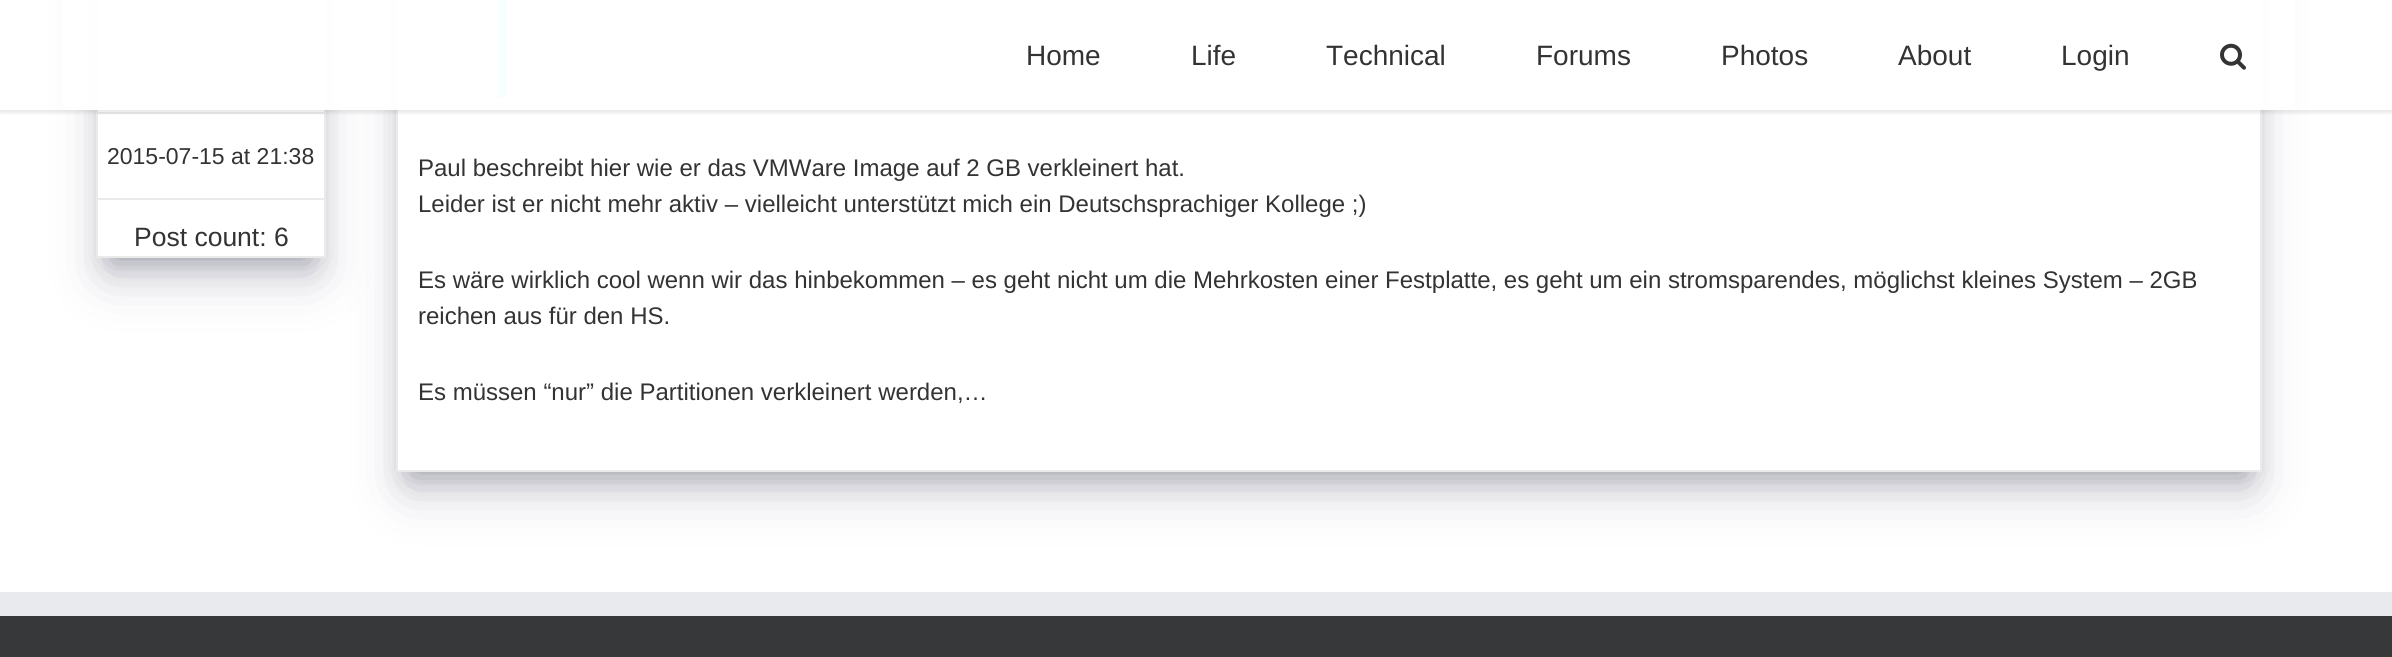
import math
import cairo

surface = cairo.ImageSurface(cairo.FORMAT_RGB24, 2392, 657)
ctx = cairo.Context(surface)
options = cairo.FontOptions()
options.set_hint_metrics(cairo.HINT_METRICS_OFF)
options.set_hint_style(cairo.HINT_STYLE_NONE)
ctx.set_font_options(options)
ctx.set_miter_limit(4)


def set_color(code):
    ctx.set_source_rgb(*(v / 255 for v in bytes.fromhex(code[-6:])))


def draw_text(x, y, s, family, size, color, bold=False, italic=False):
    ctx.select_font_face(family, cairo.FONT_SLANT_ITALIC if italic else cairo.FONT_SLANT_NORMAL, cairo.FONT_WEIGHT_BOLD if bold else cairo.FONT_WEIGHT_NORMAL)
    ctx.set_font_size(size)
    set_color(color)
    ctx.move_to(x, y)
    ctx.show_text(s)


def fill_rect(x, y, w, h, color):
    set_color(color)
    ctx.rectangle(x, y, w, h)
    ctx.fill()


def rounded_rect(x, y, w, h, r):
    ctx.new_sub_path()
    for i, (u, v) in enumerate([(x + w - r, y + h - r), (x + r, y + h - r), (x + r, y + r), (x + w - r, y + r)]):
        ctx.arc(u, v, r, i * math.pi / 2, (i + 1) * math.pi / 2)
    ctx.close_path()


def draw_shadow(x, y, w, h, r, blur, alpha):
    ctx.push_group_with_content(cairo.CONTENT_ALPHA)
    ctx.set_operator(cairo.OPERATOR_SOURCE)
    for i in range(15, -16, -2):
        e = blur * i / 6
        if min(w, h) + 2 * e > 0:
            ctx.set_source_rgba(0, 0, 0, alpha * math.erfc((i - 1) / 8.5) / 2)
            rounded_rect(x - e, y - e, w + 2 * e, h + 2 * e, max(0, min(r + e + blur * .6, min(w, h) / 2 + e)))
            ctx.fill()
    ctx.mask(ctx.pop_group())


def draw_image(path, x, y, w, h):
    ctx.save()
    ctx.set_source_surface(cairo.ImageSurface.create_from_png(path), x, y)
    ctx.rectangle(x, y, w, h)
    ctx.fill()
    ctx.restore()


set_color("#ffffff")
ctx.paint()
ctx.save()
ctx.set_fill_rule(cairo.FILL_RULE_EVEN_ODD)
ctx.new_path()
ctx.move_to(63, 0)
ctx.line_to(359, 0)
ctx.line_to(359, 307)
ctx.line_to(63, 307)
ctx.close_path()
ctx.move_to(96, -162)
ctx.line_to(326, -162)
ctx.line_to(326, 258)
ctx.line_to(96, 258)
ctx.close_path()
ctx.clip()
set_color("#000000")
draw_shadow(112, -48, 198, 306, 0, 16, 0.3)
ctx.restore()
ctx.save()
ctx.set_fill_rule(cairo.FILL_RULE_EVEN_ODD)
ctx.new_path()
ctx.move_to(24, 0)
ctx.line_to(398, 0)
ctx.line_to(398, 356)
ctx.line_to(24, 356)
ctx.close_path()
ctx.move_to(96, -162)
ctx.line_to(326, -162)
ctx.line_to(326, 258)
ctx.line_to(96, 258)
ctx.close_path()
ctx.clip()
set_color("#32325d")
draw_shadow(106, -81, 210, 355, 0, 27, 0.25)
ctx.restore()
ctx.rectangle(97, -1, 228, 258)
set_color("#ebeaea")
ctx.stroke()
fill_rect(98, 112, 226, 2, "#ebeaea")
ctx.save()
ctx.set_fill_rule(cairo.FILL_RULE_EVEN_ODD)
ctx.new_path()
ctx.move_to(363, 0)
ctx.line_to(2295, 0)
ctx.line_to(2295, 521)
ctx.line_to(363, 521)
ctx.close_path()
ctx.move_to(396, -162)
ctx.line_to(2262, -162)
ctx.line_to(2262, 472)
ctx.line_to(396, 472)
ctx.close_path()
ctx.clip()
set_color("#000000")
draw_shadow(412, -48, 1834, 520, 0, 16, 0.3)
ctx.restore()
ctx.save()
ctx.set_fill_rule(cairo.FILL_RULE_EVEN_ODD)
ctx.new_path()
ctx.move_to(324, 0)
ctx.line_to(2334, 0)
ctx.line_to(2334, 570)
ctx.line_to(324, 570)
ctx.close_path()
ctx.move_to(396, -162)
ctx.line_to(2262, -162)
ctx.line_to(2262, 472)
ctx.line_to(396, 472)
ctx.close_path()
ctx.clip()
set_color("#32325d")
draw_shadow(406, -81, 1846, 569, 0, 27, 0.25)
ctx.restore()
ctx.rectangle(397, -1, 1864, 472)
ctx.stroke()
fill_rect(506, 0, 1654, 98, "#f6f6f6")
fill_rect(498, 0, 8, 98, "#03a9f4")
ctx.save()
ctx.rectangle(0, 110, 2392, 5)
ctx.clip()
set_color("#000000")
draw_shadow(0, 2, 2392, 110, 0, 3, 0.12)
ctx.restore()
ctx.set_source_rgba(1, 1, 1, 0.97)
ctx.rectangle(63, 0, 2232, 110)
ctx.fill()
draw_text(1026, 65, "Home", "Liberation Sans", 28, "#333333")
draw_text(1191, 65, "Life", "Liberation Sans", 28, "#333333")
draw_text(1326, 65, "Technical", "Liberation Sans", 28, "#333333")
draw_text(1536, 65, "Forums", "Liberation Sans", 28, "#333333")
draw_text(1721, 65, "Photos", "Liberation Sans", 28, "#333333")
draw_text(1898, 65, "About", "Liberation Sans", 28, "#333333")
draw_text(2061, 65, "Login", "Liberation Sans", 28, "#333333")
draw_image("assets/img1.png", 2220, 43, 26, 27)
fill_rect(98, 198, 226, 2, "#ebeaea")
draw_text(107, 164, "2015-07-15 at 21:38", "Liberation Sans", 23, "#333333")
draw_text(134, 246, "Post count: 6", "Liberation Sans", 26.5, "#333333")
draw_text(418, 176, "Paul beschreibt hier wie er das VMWare Image auf 2 GB verkleinert hat.", "Liberation Sans", 24, "#333333")
draw_text(418, 212, "Leider ist er nicht mehr aktiv – vielleicht unterstützt mich ein Deutschsprachiger Kollege ;)", "Liberation Sans", 24, "#333333")
draw_text(418, 288, "Es wäre wirklich cool wenn wir das hinbekommen – es geht nicht um die Mehrkosten einer Festplatte, es geht um ein stromsparendes, möglichst kleines System – 2GB", "Liberation Sans", 24, "#333333")
draw_text(418, 324, "reichen aus für den HS.", "Liberation Sans", 24, "#333333")
draw_text(418, 400, "Es müssen “nur” die Partitionen verkleinert werden,…", "Liberation Sans", 24, "#333333")
fill_rect(0, 616, 2392, 41, "#363839")
fill_rect(0, 592, 2392, 24, "#e9eaee")
surface.write_to_png("output.png")
